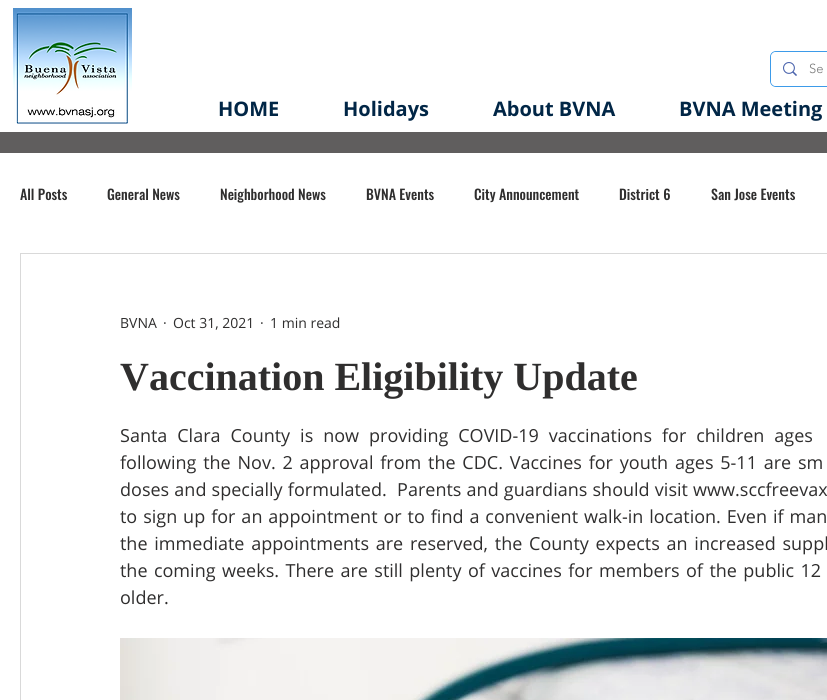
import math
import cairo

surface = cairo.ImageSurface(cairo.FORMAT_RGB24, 827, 700)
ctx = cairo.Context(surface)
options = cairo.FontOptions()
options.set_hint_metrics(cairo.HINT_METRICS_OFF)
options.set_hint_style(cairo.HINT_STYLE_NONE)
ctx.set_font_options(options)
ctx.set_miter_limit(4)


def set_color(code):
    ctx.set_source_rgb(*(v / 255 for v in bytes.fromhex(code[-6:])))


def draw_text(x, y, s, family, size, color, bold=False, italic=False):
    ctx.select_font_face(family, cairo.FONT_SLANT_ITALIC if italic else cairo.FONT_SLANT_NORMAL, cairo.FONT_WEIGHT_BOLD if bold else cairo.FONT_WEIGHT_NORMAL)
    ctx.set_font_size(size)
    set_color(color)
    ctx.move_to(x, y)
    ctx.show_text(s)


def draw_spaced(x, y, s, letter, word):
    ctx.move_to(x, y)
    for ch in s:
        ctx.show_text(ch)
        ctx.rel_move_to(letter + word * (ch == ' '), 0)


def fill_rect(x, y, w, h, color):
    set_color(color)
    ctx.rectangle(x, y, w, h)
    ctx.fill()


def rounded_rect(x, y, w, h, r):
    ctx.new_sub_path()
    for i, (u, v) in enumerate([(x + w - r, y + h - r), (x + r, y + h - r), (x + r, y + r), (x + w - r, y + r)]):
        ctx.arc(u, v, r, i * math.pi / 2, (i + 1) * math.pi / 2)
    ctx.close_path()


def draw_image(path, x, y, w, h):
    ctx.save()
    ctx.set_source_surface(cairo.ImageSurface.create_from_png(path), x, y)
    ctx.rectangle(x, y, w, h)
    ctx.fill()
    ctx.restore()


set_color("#ffffff")
ctx.paint()
draw_image("assets/img1.png", 13, 8, 119, 116)
rounded_rect(770.5, 51.5, 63, 35, 5.5)
set_color("#3d9be9")
ctx.set_line_width(1)
ctx.stroke()
set_color("#ffffff")
rounded_rect(771, 52, 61, 34, 5)
ctx.fill()
draw_image("assets/img2.png", 783, 62, 14, 14)
draw_text(809, 73, "Se", "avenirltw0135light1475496 Light", 13, "#787878")
draw_text(218, 116, "HOME", "Open Sans", 20, "#012646", bold=True)
draw_text(343, 116, "Holidays", "Open Sans", 20, "#012646", bold=True)
draw_text(493, 116, "About BVNA", "Open Sans", 20, "#012646", bold=True)
draw_text(679, 116, "BVNA Meeting", "Open Sans", 20, "#012646", bold=True)
fill_rect(0, 132, 827, 21, "#605e5e")
draw_text(20, 200, "All Posts", "Oswald Medium", 14, "#2f2e2e")
draw_text(107, 200, "General News", "Oswald Medium", 14, "#2f2e2e")
draw_text(220, 200, "Neighborhood News", "Oswald Medium", 14, "#2f2e2e")
draw_text(366, 200, "BVNA Events", "Oswald Medium", 14, "#2f2e2e")
draw_text(474, 200, "City Announcement", "Oswald Medium", 14, "#2f2e2e")
draw_text(619, 200, "District 6", "Oswald Medium", 14, "#2f2e2e")
draw_text(711, 200, "San Jose Events", "Oswald Medium", 14, "#2f2e2e")
ctx.rectangle(20.5, 253.5, 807, 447)
set_color("#d9d9d9")
ctx.stroke()
draw_text(120, 328, "BVNA", "Open Sans", 14, "#2f2e2e")
draw_text(163, 328, "·", "Open Sans", 14, "#2f2e2e")
draw_text(173, 328, "Oct 31, 2021", "Open Sans", 14, "#2f2e2e")
draw_text(260, 328, "·", "Open Sans", 14, "#2f2e2e")
draw_text(270, 328, "1 min read", "Open Sans", 14, "#2f2e2e")
draw_text(120, 390, "Vaccination Eligibility Update", "Liberation Serif", 40, "#2f2e2e", bold=True)
ctx.select_font_face("Open Sans")
ctx.set_font_size(18)
draw_spaced(120, 442, "Santa Clara County is now providing COVID-19 vaccinations for children ages", 0, 5.25)
draw_spaced(120, 469, "following the Nov. 2 approval from the CDC. Vaccines for youth ages 5-11 are sm", 0, 2.1)
draw_spaced(120, 496, "doses and specially formulated.  Parents and guardians should visit", 0, 0.5)
draw_text(693, 496, "www.sccfreevax", "Open Sans", 18, "#2f2e2e")
draw_spaced(120, 523, "to sign up for an appointment or to find a convenient walk-in location. Even if man", 0, 1.25)
draw_spaced(120, 550, "the immediate appointments are reserved, the County expects an increased suppl", 0, 2.1)
draw_spaced(120, 577, "the coming weeks. There are still plenty of vaccines for members of the public 12", 0, 1.75)
draw_text(120, 604, "older.", "Open Sans", 18, "#2f2e2e")
draw_image("assets/img3.png", 120, 638, 707, 62)
surface.write_to_png("output.png")
